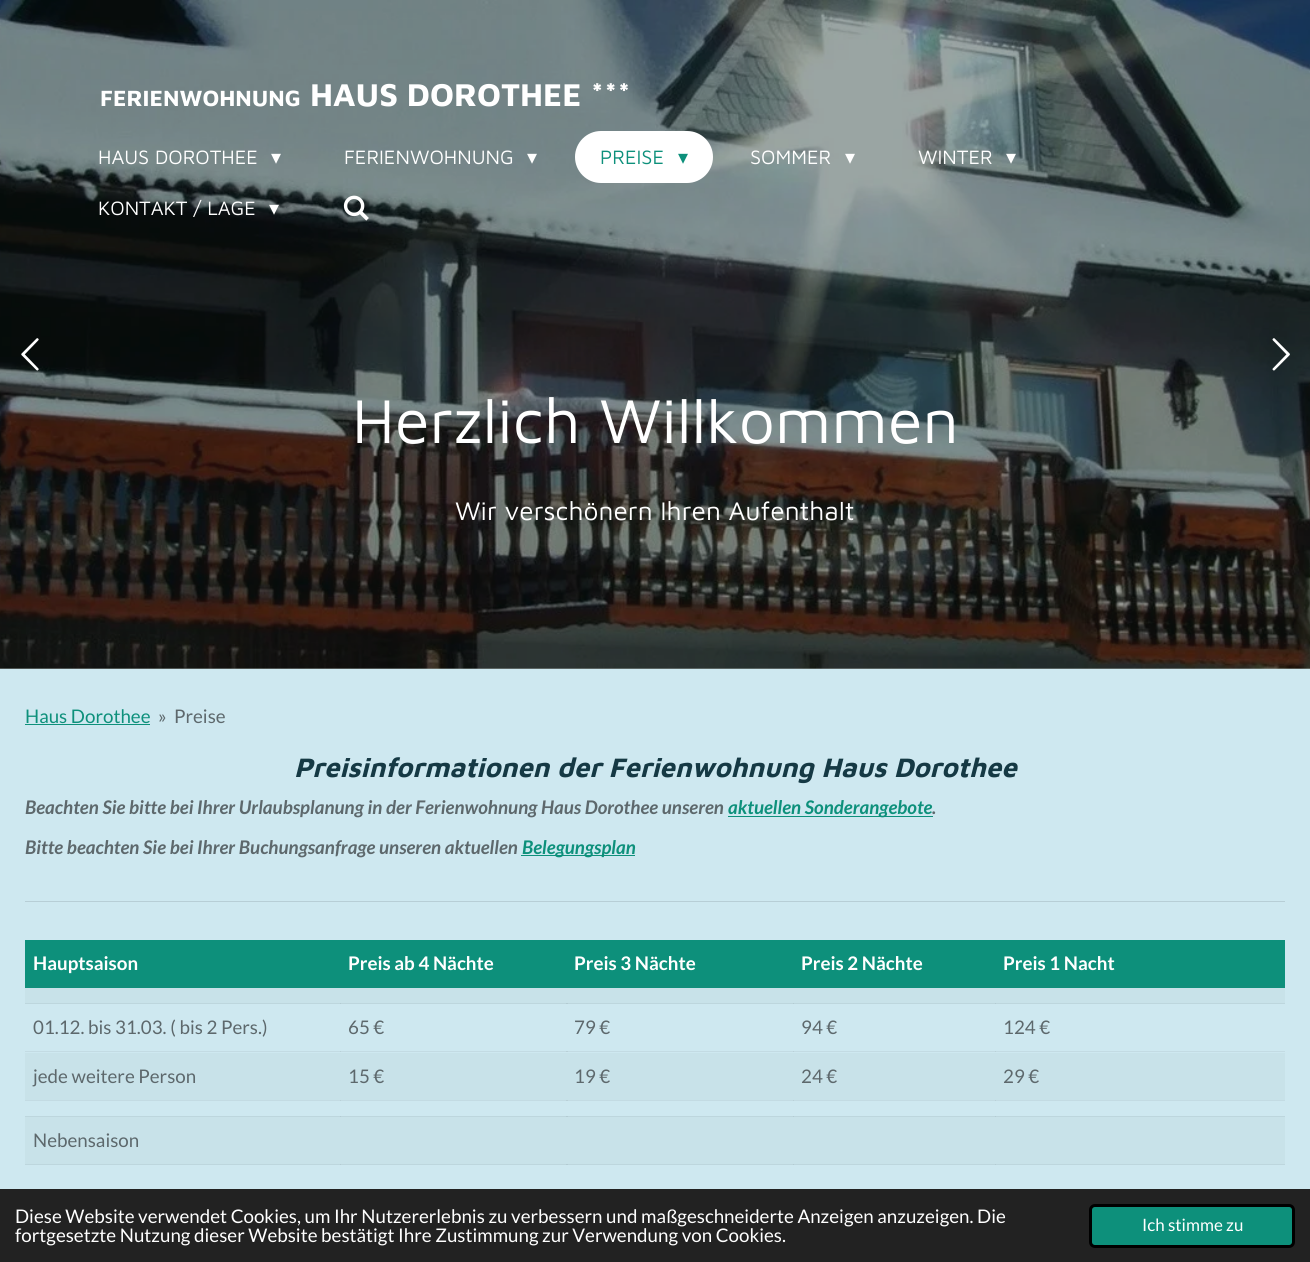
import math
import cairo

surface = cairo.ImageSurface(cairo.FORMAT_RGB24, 1310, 1262)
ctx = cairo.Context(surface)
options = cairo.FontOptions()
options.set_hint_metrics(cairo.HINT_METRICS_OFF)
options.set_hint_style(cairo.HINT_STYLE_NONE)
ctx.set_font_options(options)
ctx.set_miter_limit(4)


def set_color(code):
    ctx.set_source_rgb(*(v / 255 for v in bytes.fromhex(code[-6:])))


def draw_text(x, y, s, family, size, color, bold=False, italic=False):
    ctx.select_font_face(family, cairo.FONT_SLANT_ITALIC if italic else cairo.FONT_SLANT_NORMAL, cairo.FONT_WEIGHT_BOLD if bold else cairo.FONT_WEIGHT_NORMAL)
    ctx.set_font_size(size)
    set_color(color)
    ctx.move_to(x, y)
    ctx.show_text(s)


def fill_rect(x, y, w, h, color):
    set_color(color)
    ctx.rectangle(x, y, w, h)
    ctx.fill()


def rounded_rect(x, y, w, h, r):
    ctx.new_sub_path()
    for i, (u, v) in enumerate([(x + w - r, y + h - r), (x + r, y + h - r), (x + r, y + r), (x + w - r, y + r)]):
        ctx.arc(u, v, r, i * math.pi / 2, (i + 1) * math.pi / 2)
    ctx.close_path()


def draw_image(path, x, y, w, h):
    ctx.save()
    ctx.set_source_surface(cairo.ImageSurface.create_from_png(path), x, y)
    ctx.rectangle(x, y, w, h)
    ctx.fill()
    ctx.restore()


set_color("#9aa5a3")
ctx.paint()
draw_image("assets/img4.png", 0, 0, 1310, 669)
draw_text(100, 106, "FERIENWOHNUNG", "Maven Pro", 22.75, "#ffffff", bold=True)
draw_text(310, 106, "HAUS DOROTHEE ***", "Maven Pro", 32.5, "#ffffff", bold=True)
draw_text(98, 164, "HAUS DOROTHEE", "Maven Pro", 20, "#ffffff")
draw_text(271, 164, "▾", "DejaVu Sans", 20, "#ffffff")
draw_text(344, 164, "FERIENWOHNUNG", "Maven Pro", 20, "#ffffff")
draw_text(527, 164, "▾", "DejaVu Sans", 20, "#ffffff")
rounded_rect(575, 131, 138, 52, 26)
ctx.fill()
draw_text(600, 164, "PREISE", "Maven Pro", 20, "#0d907b")
draw_text(678, 164, "▾", "DejaVu Sans", 20, "#0d907b")
draw_text(750, 164, "SOMMER", "Maven Pro", 20, "#ffffff")
draw_text(845, 164, "▾", "DejaVu Sans", 20, "#ffffff")
draw_text(918, 164, "WINTER", "Maven Pro", 20, "#ffffff")
draw_text(1006, 164, "▾", "DejaVu Sans", 20, "#ffffff")
draw_text(98, 215, "KONTAKT / LAGE", "Maven Pro", 20, "#ffffff")
draw_text(269, 215, "▾", "DejaVu Sans", 20, "#ffffff")
draw_image("assets/img1.png", 343, 195, 26, 26)
draw_image("assets/img2.png", 21, 338, 18, 33)
draw_image("assets/img3.png", 1272, 338, 18, 33)
draw_text(352, 443, "Herzlich Willkommen", "Maven Pro", 63.75, "#ffffff")
draw_text(455, 520, "Wir verschönern Ihren Aufenthalt", "Maven Pro", 26.25, "#ffffff")
fill_rect(0, 669, 1310, 520, "#cee8f0")
fill_rect(25, 1051, 1260, 1, "#c3dbe3")
fill_rect(340, 1051, 1, 1, "#b9d0d7")
fill_rect(566, 1051, 2, 1, "#b9d0d7")
fill_rect(793, 1051, 1, 1, "#b9d0d7")
fill_rect(25, 1100, 1260, 1, "#c3dbe3")
fill_rect(340, 1100, 1, 1, "#b9d0d7")
fill_rect(566, 1100, 2, 1, "#b9d0d7")
fill_rect(793, 1100, 1, 1, "#b9d0d7")
draw_text(25, 723, "Haus Dorothee", "Lato", 18.75, "#0d907b")
fill_rect(25, 724, 125, 1, "#0d907b")
draw_text(158, 723, "»", "Lato", 18.75, "#5d686c")
draw_text(174, 723, "Preise", "Lato", 18.75, "#5d686c")
draw_text(294, 777, "Preisinformationen der Ferienwohnung Haus Dorothee", "Maven Pro", 27.5, "#153944", bold=True, italic=True)
draw_text(25, 814, "Beachten Sie bitte bei Ihrer Urlaubsplanung in der Ferienwohnung Haus Dorothee unseren", "Lato", 18.75, "#5d686c", bold=True, italic=True)
fill_rect(728, 816, 205, 1, "#0d907b")
draw_text(728, 814, "aktuellen Sonderangebote", "Lato", 18.75, "#0d907b", bold=True, italic=True)
draw_text(932, 814, ".", "Lato", 18.75, "#5d686c", bold=True, italic=True)
draw_text(25, 854, "Bitte beachten Sie bei Ihrer Buchungsanfrage unseren aktuellen", "Lato", 18.75, "#5d686c", bold=True, italic=True)
fill_rect(521, 855, 114, 1, "#0d907b")
draw_text(522, 854, "Belegungsplan", "Lato", 18.75, "#0d907b", bold=True, italic=True)
fill_rect(25, 901, 1260, 1, "#b7ced6")
fill_rect(25, 940, 1260, 48, "#0d907b")
fill_rect(25, 986, 1260, 1, "#158c7a")
draw_text(33, 970, "Hauptsaison", "Lato", 18.75, "#ffffff", bold=True)
fill_rect(340, 986, 1, 1, "#1c8879")
draw_text(348, 970, "Preis ab 4 Nächte", "Lato", 18.75, "#ffffff", bold=True)
fill_rect(566, 986, 2, 1, "#1c8879")
fill_rect(793, 986, 1, 1, "#1c8879")
draw_text(574, 970, "Preis 3 Nächte", "Lato", 18.75, "#ffffff", bold=True)
draw_text(801, 970, "Preis 2 Nächte", "Lato", 18.75, "#ffffff", bold=True)
draw_text(1003, 970, "Preis 1 Nacht", "Lato", 18.75, "#ffffff", bold=True)
fill_rect(995, 986, 1, 1, "#1c8879")
fill_rect(25, 988, 1260, 15, "#c8e2e9")
fill_rect(25, 1003, 1260, 1, "#bdd6dd")
fill_rect(340, 1003, 1, 1, "#b3cbd2")
fill_rect(566, 1003, 2, 1, "#b3cbd2")
fill_rect(793, 1003, 1, 1, "#b3cbd2")
draw_text(33, 1034, "01.12. bis 31.03. ( bis 2 Pers.)", "Lato", 18.75, "#5d686c")
draw_text(348, 1034, "65 €", "Lato", 18.75, "#5d686c")
draw_text(574, 1034, "79 €", "Lato", 18.75, "#5d686c")
draw_text(801, 1034, "94 €", "Lato", 18.75, "#5d686c")
fill_rect(995, 1003, 1, 1, "#b3cbd2")
draw_text(1003, 1034, "124 €", "Lato", 18.75, "#5d686c")
fill_rect(25, 1053, 1260, 47, "#c8e2e9")
draw_text(33, 1083, "jede weitere Person", "Lato", 18.75, "#5d686c")
draw_text(348, 1083, "15 €", "Lato", 18.75, "#5d686c")
draw_text(574, 1083, "19 €", "Lato", 18.75, "#5d686c")
draw_text(801, 1083, "24 €", "Lato", 18.75, "#5d686c")
fill_rect(995, 1051, 1, 1, "#b9d0d7")
draw_text(1003, 1083, "29 €", "Lato", 18.75, "#5d686c")
fill_rect(995, 1100, 1, 1, "#b9d0d7")
fill_rect(25, 1116, 1260, 1, "#bdd6dd")
fill_rect(340, 1116, 1, 1, "#b3cbd2")
fill_rect(25, 1164, 1260, 1, "#bdd6dd")
fill_rect(340, 1164, 1, 1, "#b3cbd2")
fill_rect(566, 1116, 2, 1, "#b3cbd2")
fill_rect(793, 1116, 1, 1, "#b3cbd2")
fill_rect(566, 1164, 2, 1, "#b3cbd2")
fill_rect(793, 1164, 1, 1, "#b3cbd2")
fill_rect(995, 1116, 1, 1, "#b3cbd2")
fill_rect(25, 1117, 1260, 47, "#c8e2e9")
draw_text(33, 1147, "Nebensaison", "Lato", 18.75, "#5d686c")
fill_rect(995, 1164, 1, 1, "#b3cbd2")
fill_rect(0, 1189, 1310, 73, "#222222")
draw_text(15, 1223, "Diese Website verwendet Cookies, um Ihr Nutzererlebnis zu verbessern und maßgeschneiderte Anzeigen anzuzeigen. Die", "Lato", 18.75, "#ffffff")
draw_text(15, 1242, "fortgesetzte Nutzung dieser Website bestätigt Ihre Zustimmung zur Verwendung von Cookies.", "Lato", 18.75, "#ffffff")
set_color("#0d907b")
rounded_rect(1090.5, 1205.5, 203, 41, 4.5)
ctx.fill_preserve()
set_color("#000000")
ctx.set_line_width(3)
ctx.stroke()
draw_text(1142, 1231, "Ich stimme zu", "Lato", 17, "#ffffff")
surface.write_to_png("output.png")
